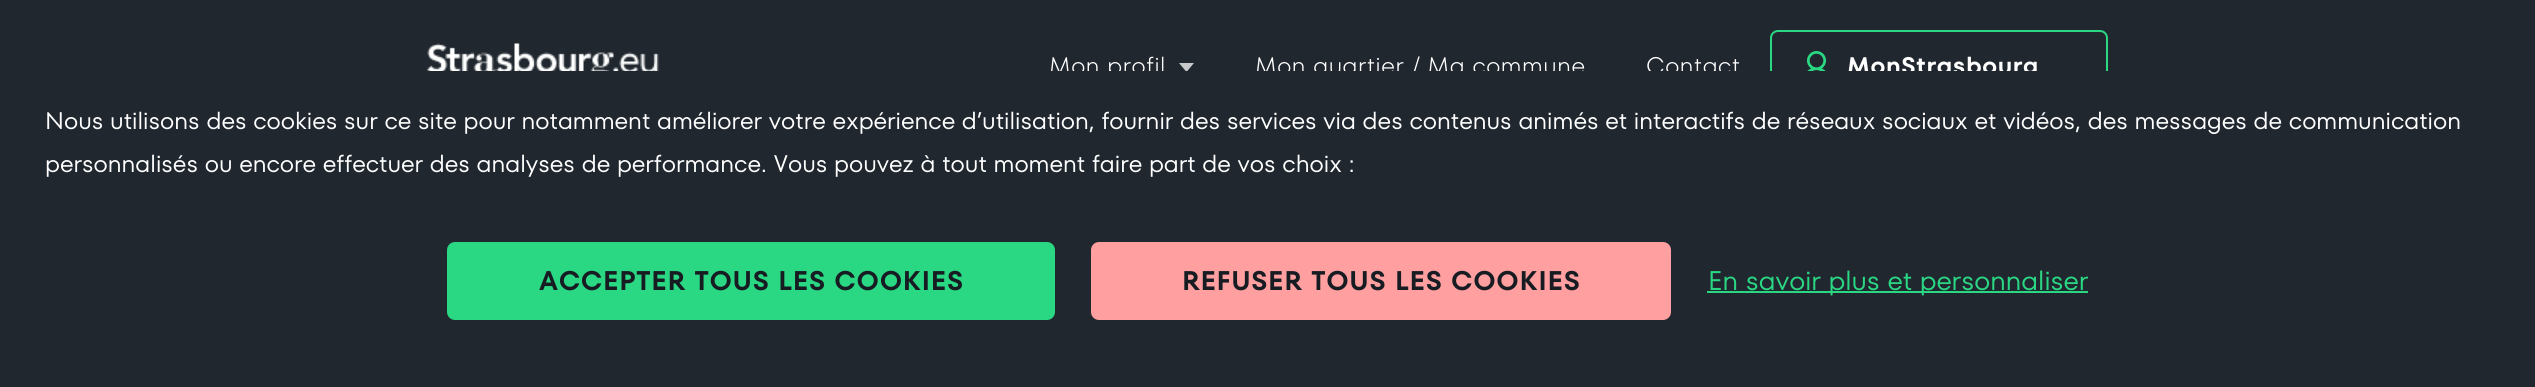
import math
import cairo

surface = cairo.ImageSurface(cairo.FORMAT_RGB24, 2535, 387)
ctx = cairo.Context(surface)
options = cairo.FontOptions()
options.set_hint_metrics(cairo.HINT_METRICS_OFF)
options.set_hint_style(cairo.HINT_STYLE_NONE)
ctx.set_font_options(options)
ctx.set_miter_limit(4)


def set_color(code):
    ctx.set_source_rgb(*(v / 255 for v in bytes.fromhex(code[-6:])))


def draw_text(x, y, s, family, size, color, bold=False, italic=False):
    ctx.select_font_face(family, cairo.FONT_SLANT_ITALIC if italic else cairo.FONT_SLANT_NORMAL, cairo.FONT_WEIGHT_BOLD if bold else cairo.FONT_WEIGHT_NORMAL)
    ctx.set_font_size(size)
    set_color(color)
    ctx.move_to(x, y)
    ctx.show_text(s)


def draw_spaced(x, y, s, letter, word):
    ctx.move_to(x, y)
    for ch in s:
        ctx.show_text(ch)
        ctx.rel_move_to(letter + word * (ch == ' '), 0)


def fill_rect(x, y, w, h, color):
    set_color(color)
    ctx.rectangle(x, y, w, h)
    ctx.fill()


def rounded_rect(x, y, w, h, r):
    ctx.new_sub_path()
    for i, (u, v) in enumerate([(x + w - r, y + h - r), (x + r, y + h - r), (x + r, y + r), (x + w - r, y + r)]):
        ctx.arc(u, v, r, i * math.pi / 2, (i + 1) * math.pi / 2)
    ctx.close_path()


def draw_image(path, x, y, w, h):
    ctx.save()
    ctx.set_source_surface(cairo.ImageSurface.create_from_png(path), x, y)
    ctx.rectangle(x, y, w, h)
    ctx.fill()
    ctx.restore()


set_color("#20272f")
ctx.paint()
draw_image("assets/img1.png", 427, 43, 232, 28)
ctx.select_font_face("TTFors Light")
ctx.set_font_size(24)
set_color("#ffffff")
draw_spaced(1049, 74, "Mon profil", 0.6, 0)
set_color("#c7c9cb")
ctx.new_path()
ctx.move_to(1186.5, 72)
ctx.line_to(1179, 63)
ctx.line_to(1194, 63)
ctx.close_path()
ctx.fill()
set_color("#ffffff")
draw_spaced(1255, 74, "Mon quartier / Ma commune", 0.6, 0)
draw_spaced(1646, 74, "Contact", 0.6, 0)
rounded_rect(1771, 31, 336, 70, 7)
set_color("#2ad783")
ctx.stroke()
draw_image("assets/img2.png", 1806, 51, 21, 20)
ctx.select_font_face("TTFors SemiBold")
set_color("#ffffff")
draw_spaced(1847, 74, "MonStrasbourg", 0.6, 0)
fill_rect(1050, 71, 1058, 31, "#20272f")
draw_text(45, 129, "Nous utilisons des cookies sur ce site pour notamment améliorer votre expérience d’utilisation, fournir des services via des contenus animés et interactifs de réseaux sociaux et vidéos, des messages de communication", "TTFors", 24, "#ffffff")
draw_text(45, 172, "personnalisés ou encore effectuer des analyses de performance. Vous pouvez à tout moment faire part de vos choix :", "TTFors", 24, "#ffffff")
set_color("#2ad783")
rounded_rect(447, 242, 608, 78, 8)
ctx.fill()
ctx.select_font_face("TTFors SemiBold")
ctx.set_font_size(27)
set_color("#171c22")
draw_spaced(539, 290, "ACCEPTER TOUS LES COOKIES", 0.7, 0)
set_color("#ff9f9f")
rounded_rect(1091, 242, 580, 78, 8)
ctx.fill()
set_color("#171c22")
draw_spaced(1182, 290, "REFUSER TOUS LES COOKIES", 0.7, 0)
fill_rect(1707, 291, 381, 2, "#2ad783")
draw_text(1708, 290, "En savoir plus et personnaliser", "TTFors", 27, "#2ad783")
surface.write_to_png("output.png")
